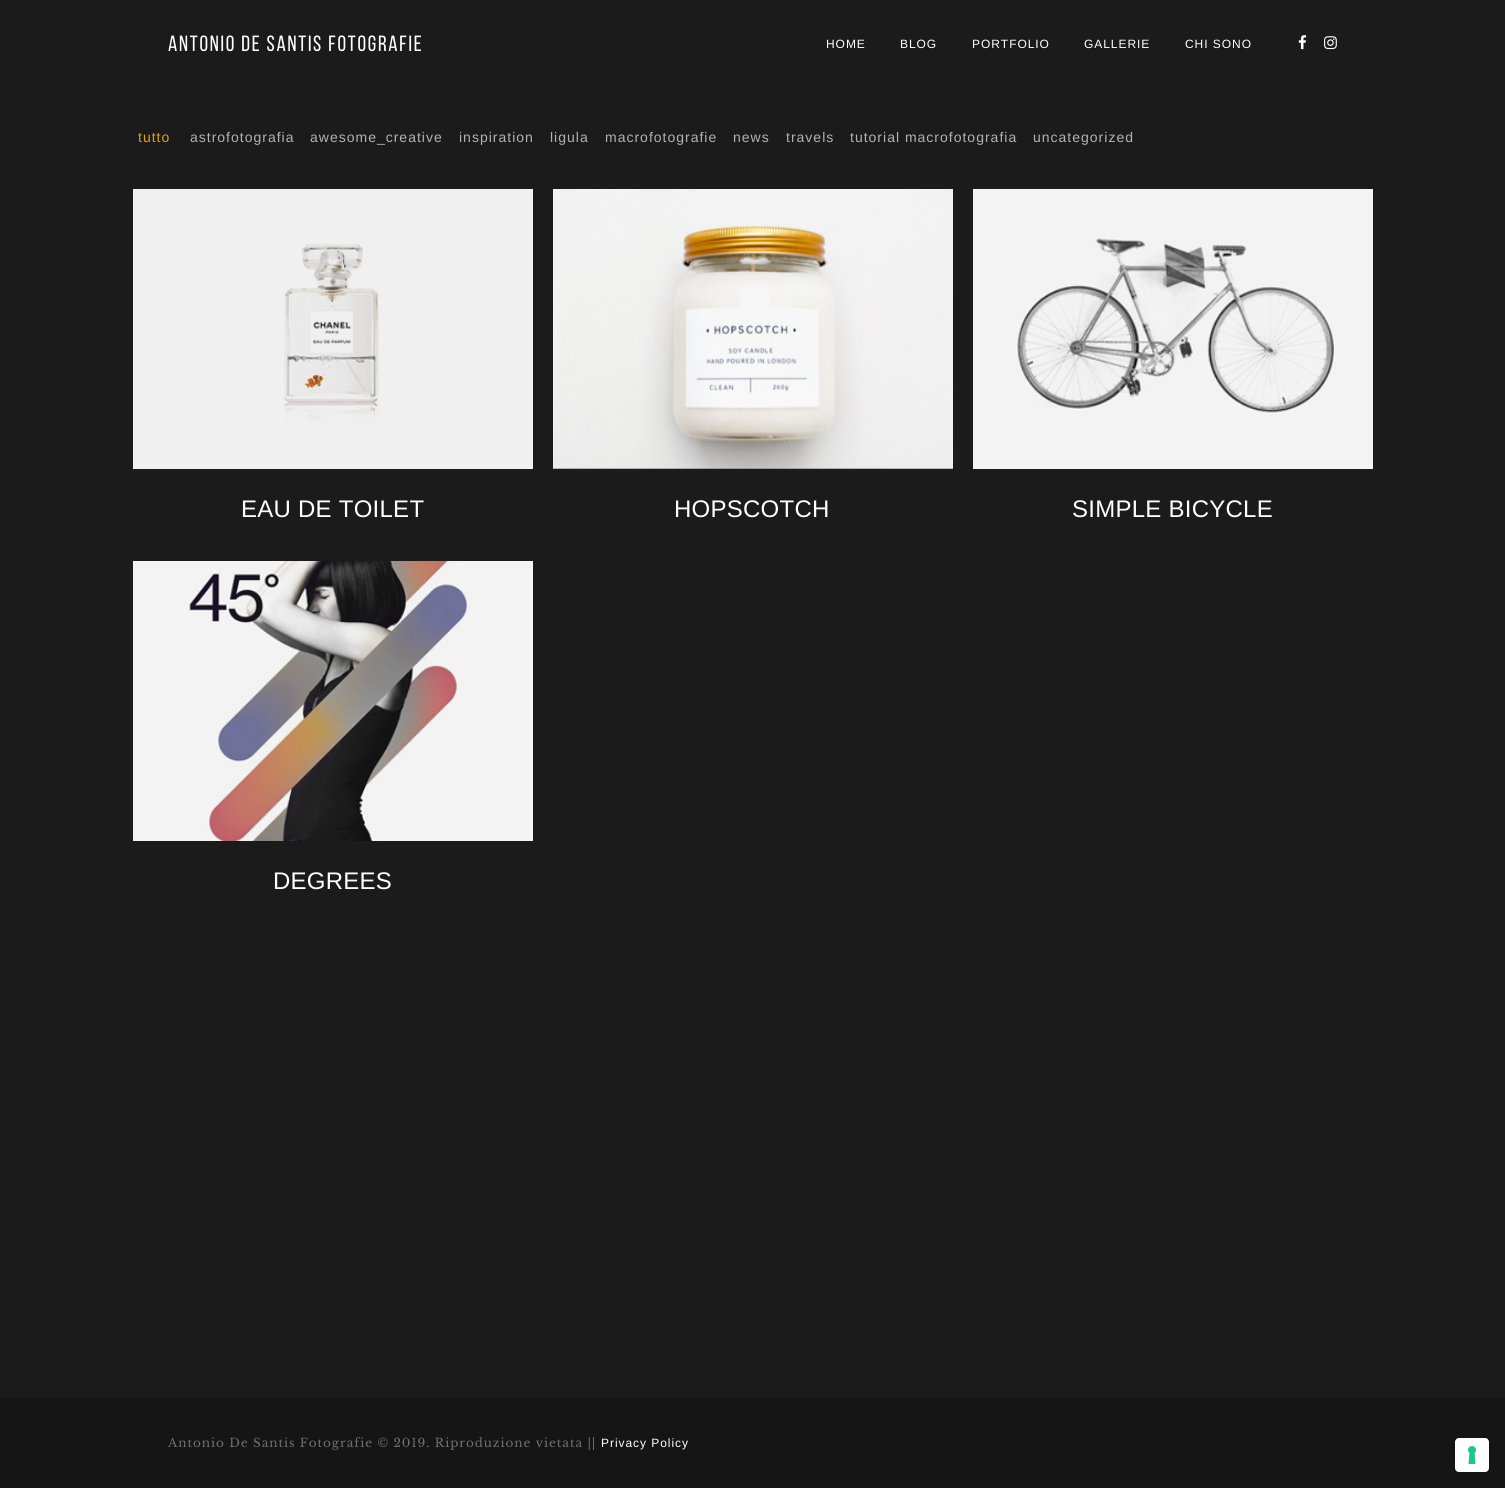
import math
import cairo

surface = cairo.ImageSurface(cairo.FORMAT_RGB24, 1505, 1488)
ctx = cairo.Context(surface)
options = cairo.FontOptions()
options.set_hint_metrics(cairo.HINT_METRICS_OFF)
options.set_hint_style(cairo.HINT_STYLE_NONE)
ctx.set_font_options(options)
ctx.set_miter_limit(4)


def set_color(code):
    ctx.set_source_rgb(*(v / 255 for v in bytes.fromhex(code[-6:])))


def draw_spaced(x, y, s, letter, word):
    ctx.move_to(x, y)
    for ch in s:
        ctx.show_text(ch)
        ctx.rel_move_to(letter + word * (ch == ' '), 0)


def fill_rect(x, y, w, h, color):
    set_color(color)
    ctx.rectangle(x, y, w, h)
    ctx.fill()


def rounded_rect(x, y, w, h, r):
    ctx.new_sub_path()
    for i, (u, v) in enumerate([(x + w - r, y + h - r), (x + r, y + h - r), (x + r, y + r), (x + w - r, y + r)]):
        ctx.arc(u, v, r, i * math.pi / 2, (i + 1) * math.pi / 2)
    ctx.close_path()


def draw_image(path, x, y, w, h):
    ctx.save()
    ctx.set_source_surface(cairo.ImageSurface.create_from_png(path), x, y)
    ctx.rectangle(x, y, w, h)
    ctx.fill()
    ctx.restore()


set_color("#1b1b1b")
ctx.paint()
ctx.select_font_face("Bebas Neue")
ctx.set_font_size(22)
set_color("#ffffff")
draw_spaced(168, 51, "Antonio De Santis Fotografie", 1.75, 0)
ctx.select_font_face("Liberation Sans")
ctx.set_font_size(12)
draw_spaced(826, 48, "HOME", 0.95, 0)
draw_spaced(900, 48, "BLOG", 0.95, 0)
draw_spaced(972, 48, "PORTFOLIO", 0.95, 0)
draw_spaced(1084, 48, "GALLERIE", 0.95, 0)
draw_spaced(1185, 48, "CHI SONO", 0.95, 0)
draw_image("assets/img1.png", 1298, 35, 9, 15)
draw_image("assets/img2.png", 1324, 36, 13, 14)
ctx.set_font_size(14)
set_color("#e89d15")
draw_spaced(138, 142, "tutto", 1, 0)
set_color("#b2b2b2")
draw_spaced(190, 142, "astrofotografia", 1, 0)
draw_spaced(310, 142, "awesome_creative", 1, 0)
draw_spaced(459, 142, "inspiration", 1, 0)
draw_spaced(550, 142, "ligula", 1, 0)
draw_spaced(605, 142, "macrofotografie", 1, 0)
draw_spaced(733, 142, "news", 1, 0)
draw_spaced(786, 142, "travels", 1, 0)
draw_spaced(850, 142, "tutorial macrofotografia", 1, 0)
draw_spaced(1033, 142, "uncategorized", 1, 0)
draw_image("assets/img3.png", 133, 189, 400, 280)
ctx.set_font_size(24)
set_color("#ffffff")
draw_spaced(241, 517, "EAU DE TOILET", 0.25, 0)
draw_image("assets/img4.png", 553, 189, 400, 280)
draw_spaced(674, 517, "HOPSCOTCH", 0.25, 0)
draw_image("assets/img5.png", 973, 189, 400, 280)
draw_spaced(1072, 517, "SIMPLE BICYCLE", 0.25, 0)
draw_image("assets/img6.png", 133, 561, 400, 280)
draw_spaced(273, 889, "DEGREES", 0.25, 0)
fill_rect(0, 1398, 1505, 90, "#151515")
ctx.select_font_face("Libre Baskerville")
ctx.set_font_size(12)
set_color("#707070")
draw_spaced(168, 1447, "Antonio De Santis Fotografie © 2019. Riproduzione vietata ||", 0.95, 0)
ctx.select_font_face("Liberation Sans")
set_color("#ffffff")
draw_spaced(601, 1447, "Privacy Policy", 0.95, 0)
rounded_rect(1454.5, 1437.5, 35, 35, 4.5)
set_color("#121212")
ctx.set_line_width(1)
ctx.stroke()
set_color("#ffffff")
rounded_rect(1455, 1438, 34, 34, 4)
ctx.fill()
draw_image("assets/img7.png", 1468, 1446, 8, 18)
surface.write_to_png("output.png")
